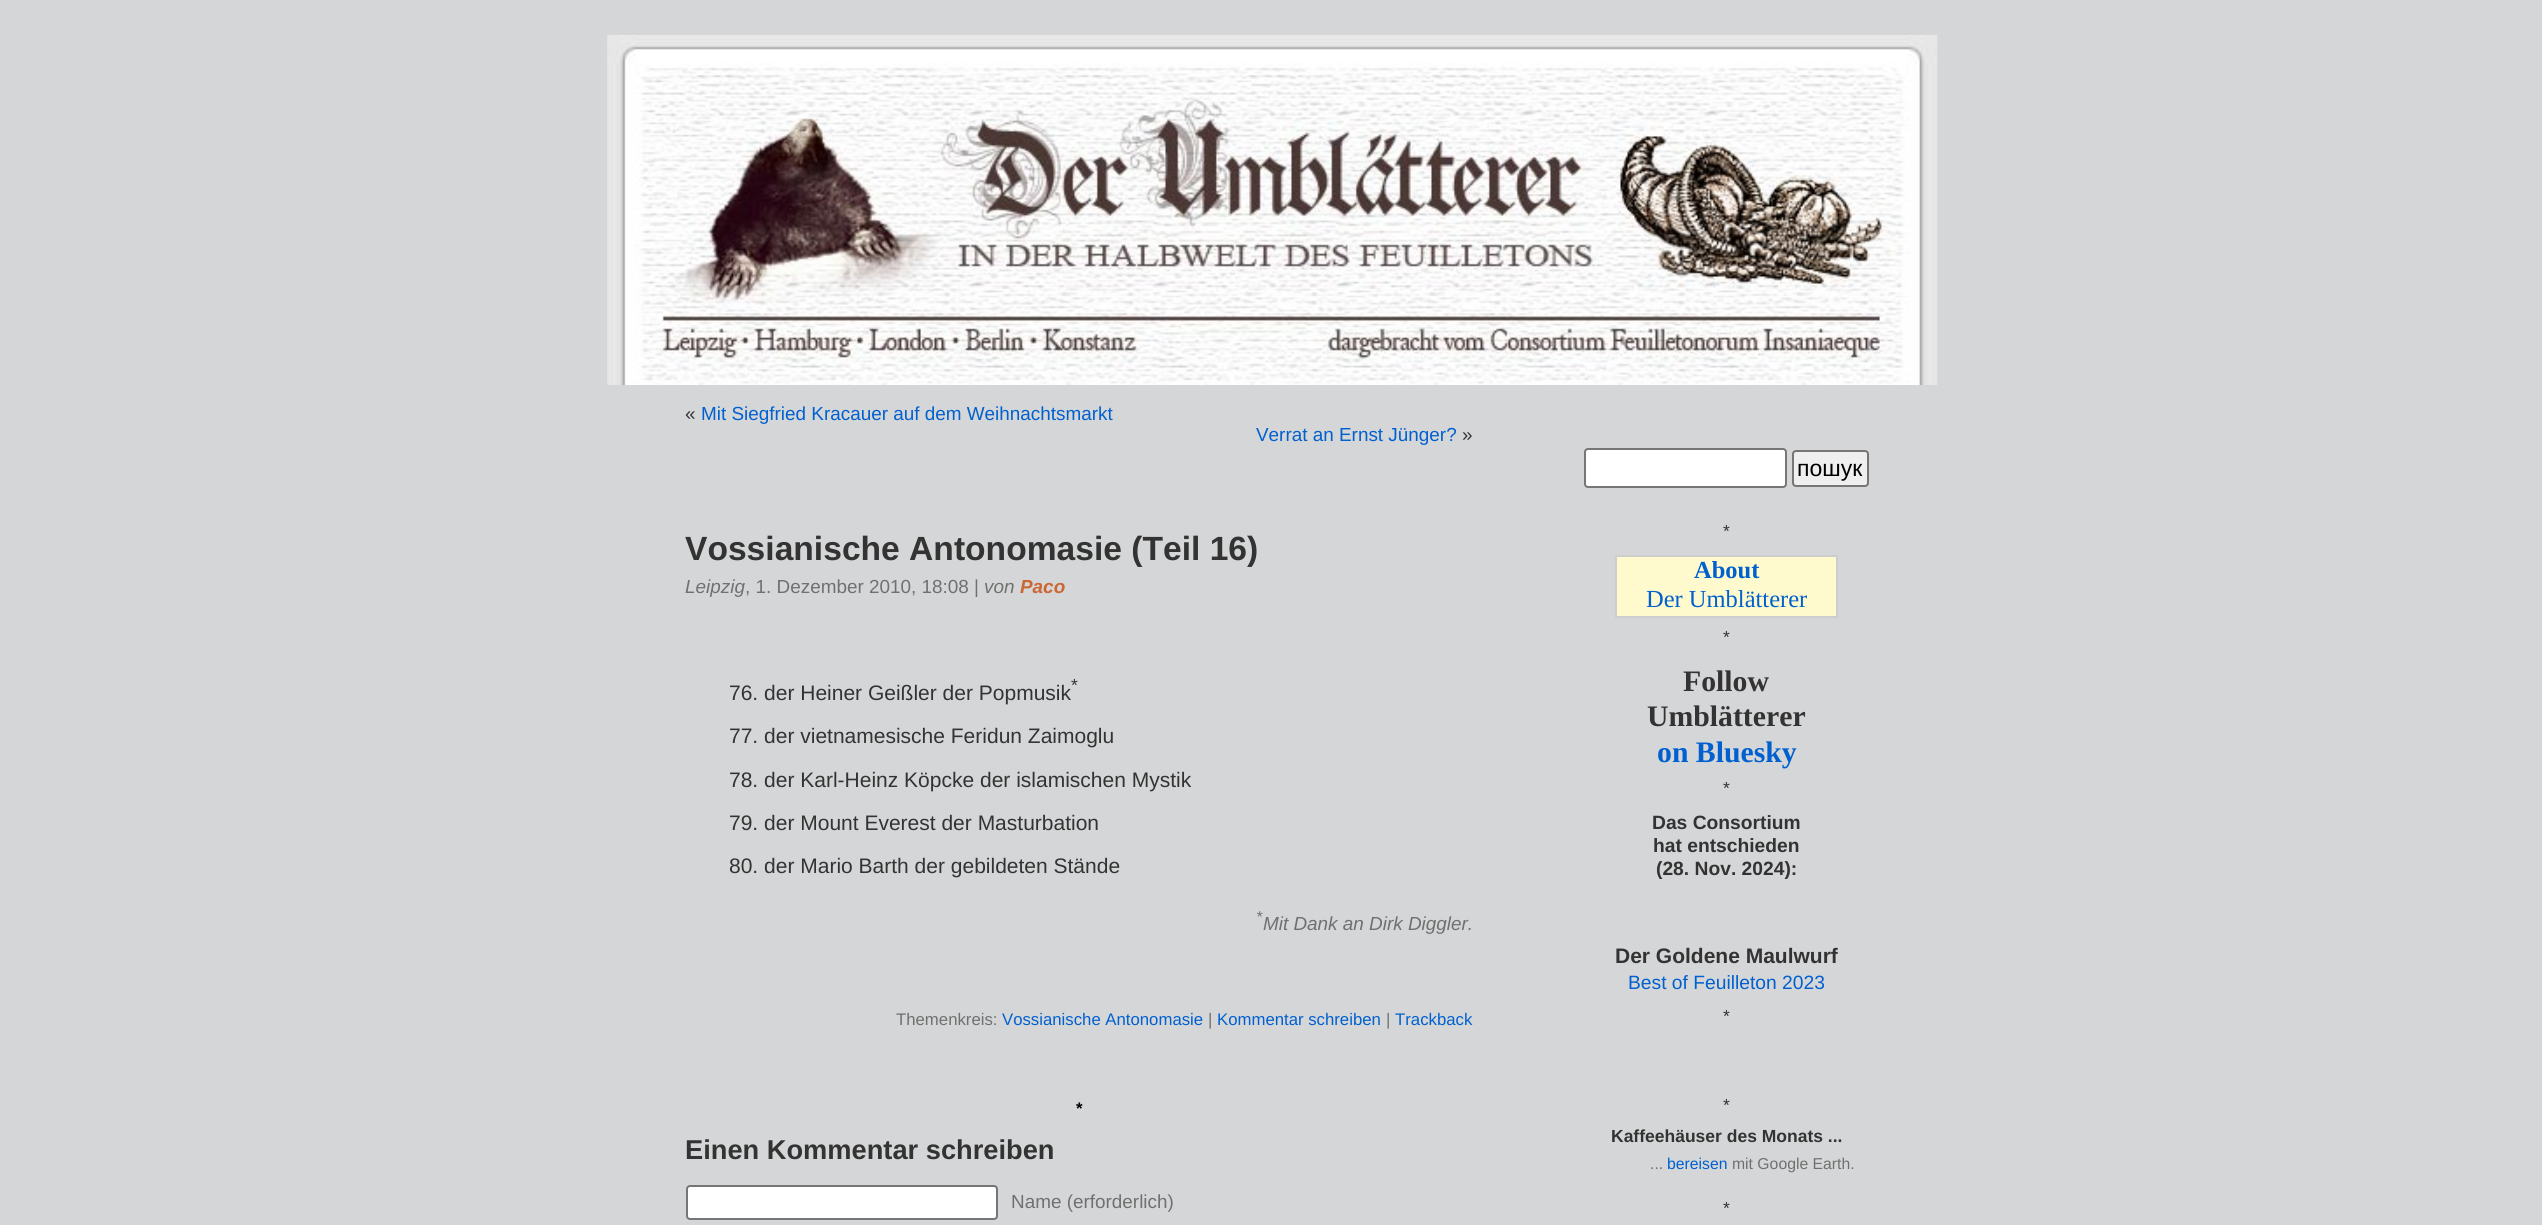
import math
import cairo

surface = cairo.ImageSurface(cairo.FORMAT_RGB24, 2542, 1225)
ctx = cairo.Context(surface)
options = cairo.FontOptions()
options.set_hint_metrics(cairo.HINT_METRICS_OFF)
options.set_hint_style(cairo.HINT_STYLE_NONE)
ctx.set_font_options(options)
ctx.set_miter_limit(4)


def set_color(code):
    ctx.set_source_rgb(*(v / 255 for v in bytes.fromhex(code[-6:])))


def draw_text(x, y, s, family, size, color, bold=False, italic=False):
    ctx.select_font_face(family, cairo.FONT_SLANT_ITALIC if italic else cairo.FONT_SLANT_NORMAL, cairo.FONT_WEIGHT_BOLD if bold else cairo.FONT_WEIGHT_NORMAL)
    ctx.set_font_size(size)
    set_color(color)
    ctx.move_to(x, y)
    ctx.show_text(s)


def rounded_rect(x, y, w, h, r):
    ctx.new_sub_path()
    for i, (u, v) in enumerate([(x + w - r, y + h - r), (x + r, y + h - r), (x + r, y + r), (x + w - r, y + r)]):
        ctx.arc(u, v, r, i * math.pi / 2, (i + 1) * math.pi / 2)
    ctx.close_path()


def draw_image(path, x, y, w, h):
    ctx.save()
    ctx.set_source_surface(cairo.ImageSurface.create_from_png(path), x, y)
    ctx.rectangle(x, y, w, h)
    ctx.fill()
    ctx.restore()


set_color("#d5d6d7")
ctx.paint()
draw_image("assets/img1.png", 607, 35, 1331, 350)
draw_text(685, 420, "«", "Liberation Sans", 18.9, "#333333")
draw_text(701, 420, "Mit Siegfried Kracauer auf dem Weihnachtsmarkt", "Liberation Sans", 18.9, "#0060d0")
draw_text(1256, 441, "Verrat an Ernst Jünger?", "Liberation Sans", 18.9, "#0060d0")
draw_text(1462, 441, "»", "Liberation Sans", 18.9, "#333333")
draw_text(685, 560, "Vossianische Antonomasie (Teil 16)", "Liberation Sans", 33.6, "#333333", bold=True)
draw_text(685, 593, "Leipzig", "Liberation Sans", 18.9, "#707070", italic=True)
draw_text(745, 593, ", 1. Dezember 2010, 18:08 |", "Liberation Sans", 18.9, "#707070")
draw_text(984, 593, "von", "Liberation Sans", 18.9, "#707070", italic=True)
draw_text(1020, 593, "Paco", "Liberation Sans", 18.9, "#cc6633", bold=True, italic=True)
draw_text(1071, 691, "*", "Liberation Sans", 17.5, "#333333")
draw_text(729, 700, "76. der Heiner Geißler der Popmusik", "Liberation Sans", 21, "#333333")
draw_text(729, 743, "77. der vietnamesische Feridun Zaimoglu", "Liberation Sans", 21, "#333333")
draw_text(729, 787, "78. der Karl-Heinz Köpcke der islamischen Mystik", "Liberation Sans", 21, "#333333")
draw_text(729, 830, "79. der Mount Everest der Masturbation", "Liberation Sans", 21, "#333333")
draw_text(729, 873, "80. der Mario Barth der gebildeten Stände", "Liberation Sans", 21, "#333333")
draw_text(1256, 922, "*", "Liberation Sans", 15.75, "#707070", italic=True)
draw_text(1263, 930, "Mit Dank an Dirk Diggler.", "Liberation Sans", 18.9, "#707070", italic=True)
draw_text(896, 1025, "Themenkreis:", "Liberation Sans", 16.75, "#707070")
draw_text(1002, 1025, "Vossianische Antonomasie", "Liberation Sans", 16.75, "#0060d0")
draw_text(1208, 1025, "|", "Liberation Sans", 16.75, "#707070")
draw_text(1217, 1025, "Kommentar schreiben", "Liberation Sans", 16.75, "#0060d0")
draw_text(1386, 1025, "|", "Liberation Sans", 16.75, "#707070")
draw_text(1395, 1025, "Trackback", "Liberation Sans", 16.75, "#0060d0")
draw_text(1076, 1114, "*", "Liberation Sans", 16.75, "#000000", bold=True)
draw_text(685, 1159, "Einen Kommentar schreiben", "Liberation Sans", 27.25, "#333333", bold=True)
set_color("#ffffff")
rounded_rect(687, 1186, 310, 33, 3)
ctx.fill_preserve()
set_color("#767676")
ctx.stroke()
draw_text(1011, 1208, "Name (erforderlich)", "Liberation Sans", 18.9, "#707070")
set_color("#ffffff")
rounded_rect(1585, 449, 201, 38, 3)
ctx.fill_preserve()
set_color("#767676")
ctx.stroke()
set_color("#efefef")
rounded_rect(1793, 451, 75, 35, 3)
ctx.fill_preserve()
set_color("#767676")
ctx.stroke()
draw_text(1797, 476, "пошук", "Liberation Sans", 23, "#000000")
draw_text(1723, 537, "*", "Liberation Sans", 17.5, "#333333")
set_color("#fffacd")
ctx.rectangle(1616, 556, 221, 61)
ctx.fill_preserve()
set_color("#cdcdcd")
ctx.stroke()
draw_text(1694, 578, "About", "Liberation Serif", 24.5, "#0060d0", bold=True)
draw_text(1646, 607, "Der Umblätterer", "Liberation Serif", 24.5, "#0060d0")
draw_text(1723, 643, "*", "Liberation Sans", 17.5, "#333333")
draw_text(1683, 691, "Follow", "Liberation Serif", 29.75, "#333333", bold=True)
draw_text(1647, 726, "Umblätterer", "Liberation Serif", 29.75, "#333333", bold=True)
draw_text(1657, 762, "on Bluesky", "Liberation Serif", 29.75, "#0060d0", bold=True)
draw_text(1723, 794, "*", "Liberation Sans", 17.5, "#333333")
draw_text(1652, 829, "Das Consortium", "Liberation Sans", 19.25, "#333333", bold=True)
draw_text(1653, 852, "hat entschieden", "Liberation Sans", 19.25, "#333333", bold=True)
draw_text(1656, 875, "(28. Nov. 2024):", "Liberation Sans", 19.25, "#333333", bold=True)
draw_text(1615, 963, "Der Goldene Maulwurf", "Liberation Sans", 21, "#333333", bold=True)
draw_text(1628, 989, "Best of Feuilleton 2023", "Liberation Sans", 19.25, "#0060d0")
draw_text(1723, 1022, "*", "Liberation Sans", 17.5, "#333333")
draw_text(1723, 1111, "*", "Liberation Sans", 17.5, "#333333")
draw_text(1611, 1142, "Kaffeehäuser des Monats ...", "Liberation Sans", 17.5, "#333333", bold=True)
draw_text(1650, 1169, "...", "Liberation Sans", 15.75, "#707070")
draw_text(1667, 1169, "bereisen", "Liberation Sans", 15.75, "#0060d0")
draw_text(1732, 1169, "mit Google Earth.", "Liberation Sans", 15.75, "#707070")
draw_text(1723, 1214, "*", "Liberation Sans", 17.5, "#333333")
surface.write_to_png("output.png")
